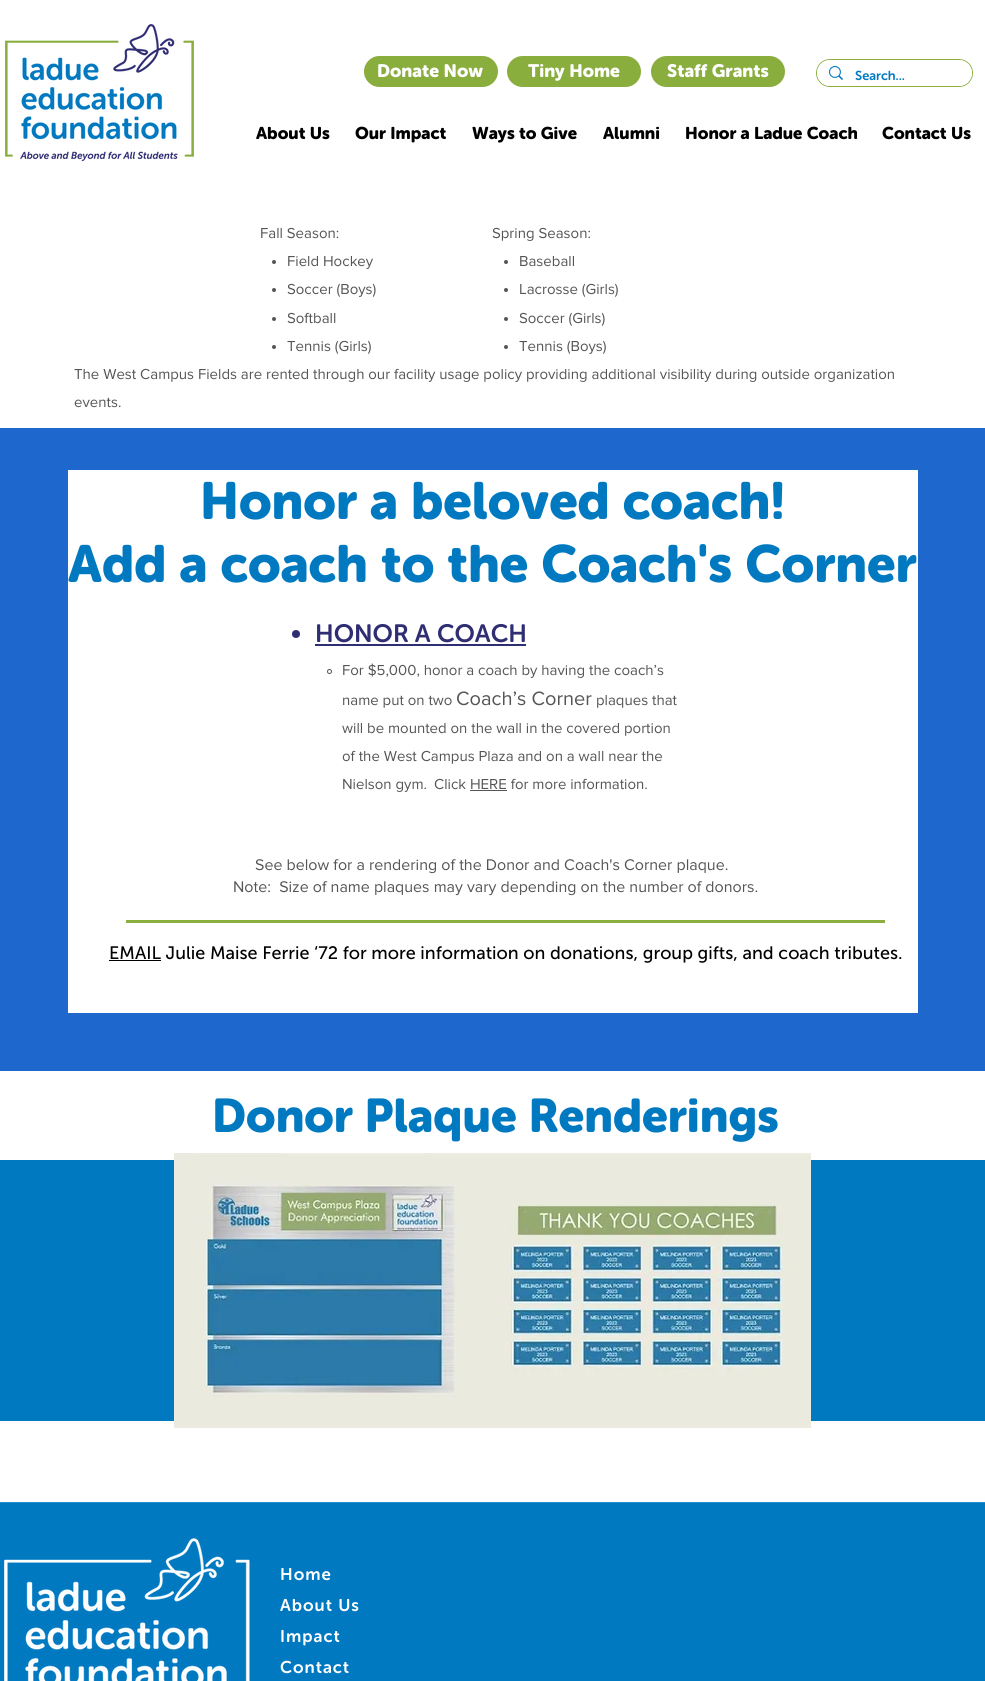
import math
import cairo

surface = cairo.ImageSurface(cairo.FORMAT_RGB24, 985, 1681)
ctx = cairo.Context(surface)
options = cairo.FontOptions()
options.set_hint_metrics(cairo.HINT_METRICS_OFF)
options.set_hint_style(cairo.HINT_STYLE_NONE)
ctx.set_font_options(options)
ctx.set_miter_limit(4)


def set_color(code):
    ctx.set_source_rgb(*(v / 255 for v in bytes.fromhex(code[-6:])))


def draw_text(x, y, s, family, size, color, bold=False, italic=False):
    ctx.select_font_face(family, cairo.FONT_SLANT_ITALIC if italic else cairo.FONT_SLANT_NORMAL, cairo.FONT_WEIGHT_BOLD if bold else cairo.FONT_WEIGHT_NORMAL)
    ctx.set_font_size(size)
    set_color(color)
    ctx.move_to(x, y)
    ctx.show_text(s)


def draw_spaced(x, y, s, letter, word):
    ctx.move_to(x, y)
    for ch in s:
        ctx.show_text(ch)
        ctx.rel_move_to(letter + word * (ch == ' '), 0)


def fill_rect(x, y, w, h, color):
    set_color(color)
    ctx.rectangle(x, y, w, h)
    ctx.fill()


def rounded_rect(x, y, w, h, r):
    ctx.new_sub_path()
    for i, (u, v) in enumerate([(x + w - r, y + h - r), (x + r, y + h - r), (x + r, y + r), (x + w - r, y + r)]):
        ctx.arc(u, v, r, i * math.pi / 2, (i + 1) * math.pi / 2)
    ctx.close_path()


def draw_image(path, x, y, w, h):
    ctx.save()
    ctx.set_source_surface(cairo.ImageSurface.create_from_png(path), x, y)
    ctx.rectangle(x, y, w, h)
    ctx.fill()
    ctx.restore()


set_color("#ffffff")
ctx.paint()
draw_image("assets/img1.png", 5, 24, 189, 137)
set_color("#8aae3d")
rounded_rect(364, 56, 134, 31, 15.5)
ctx.fill()
draw_text(377, 77, "Donate Now", "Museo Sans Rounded", 18, "#ffffff", bold=True)
set_color("#8aae3d")
rounded_rect(507, 56, 134, 31, 15.5)
ctx.fill()
draw_text(528, 77, "Tiny Home", "Museo Sans Rounded", 18, "#ffffff", bold=True)
set_color("#8aae3d")
rounded_rect(651, 56, 134, 31, 15.5)
ctx.fill()
draw_text(667, 77, "Staff Grants", "Museo Sans Rounded", 18, "#ffffff", bold=True)
rounded_rect(816.5, 59.5, 156, 27, 13.5)
set_color("#8baf3e")
ctx.set_line_width(1)
ctx.stroke()
set_color("#ffffff")
rounded_rect(817, 60, 155, 26, 13)
ctx.fill()
draw_image("assets/img2.png", 829, 66, 14, 14)
draw_text(855, 80, "Search...", "Museo Sans Rounded SemiBold", 13, "#0079c1")
draw_text(256, 139, "About Us", "Museo Sans Rounded", 17, "#000000", bold=True)
draw_text(355, 139, "Our Impact", "Museo Sans Rounded", 17, "#000000", bold=True)
draw_text(472, 139, "Ways to Give", "Museo Sans Rounded", 17, "#000000", bold=True)
draw_text(603, 139, "Alumni", "Museo Sans Rounded", 17, "#000000", bold=True)
draw_text(685, 139, "Honor a Ladue Coach", "Museo Sans Rounded", 17, "#000000", bold=True)
draw_text(882, 139, "Contact Us", "Museo Sans Rounded", 17, "#000000", bold=True)
draw_text(260, 238, "Fall Season:", "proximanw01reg", 15, "#555555")
ctx.new_path()
ctx.arc(274, 262, 2, 0, 2 * math.pi)
ctx.fill()
draw_text(287, 266, "Field Hockey", "proximanw01reg", 15, "#555555")
ctx.new_path()
ctx.arc(274, 290, 2, 0, 2 * math.pi)
ctx.fill()
draw_text(287, 294, "Soccer (Boys)", "proximanw01reg", 15, "#555555")
ctx.new_path()
ctx.arc(274, 319, 2, 0, 2 * math.pi)
ctx.fill()
draw_text(287, 323, "Softball", "proximanw01reg", 15, "#555555")
ctx.new_path()
ctx.arc(274, 347, 2, 0, 2 * math.pi)
ctx.fill()
draw_text(287, 351, "Tennis (Girls)", "proximanw01reg", 15, "#555555")
draw_text(492, 238, "Spring Season:", "proximanw01reg", 15, "#555555")
ctx.new_path()
ctx.arc(506, 262, 2, 0, 2 * math.pi)
ctx.fill()
draw_text(519, 266, "Baseball", "proximanw01reg", 15, "#555555")
ctx.new_path()
ctx.arc(506, 290, 2, 0, 2 * math.pi)
ctx.fill()
draw_text(519, 294, "Lacrosse (Girls)", "proximanw01reg", 15, "#555555")
ctx.new_path()
ctx.arc(506, 319, 2, 0, 2 * math.pi)
ctx.fill()
draw_text(519, 323, "Soccer (Girls)", "proximanw01reg", 15, "#555555")
ctx.new_path()
ctx.arc(506, 347, 2, 0, 2 * math.pi)
ctx.fill()
draw_text(519, 351, "Tennis (Boys)", "proximanw01reg", 15, "#555555")
draw_text(74, 379, "The West Campus Fields are rented through our facility usage policy providing additional visibility during outside organization", "proximanw01reg", 15, "#555555")
draw_text(74, 407, "events.", "proximanw01reg", 15, "#555555")
fill_rect(0, 428, 985, 643, "#1d67cd")
fill_rect(68, 470, 850, 543, "#ffffff")
draw_text(200, 519, "Honor a beloved coach!", "Museo Sans Rounded", 52, "#0079c1", bold=True)
draw_text(68, 582, "Add a coach to the Coach's Corner", "Museo Sans Rounded", 52, "#0079c1", bold=True)
set_color("#302e73")
ctx.new_path()
ctx.arc(296, 634, 4, 0, 2 * math.pi)
ctx.fill()
draw_text(315, 642, "HONOR A COACH", "Museo Sans Rounded SemiBold", 25, "#302e73")
fill_rect(315, 644, 211, 2, "#302e73")
ctx.new_path()
ctx.arc(329.5, 671.5, 2, 0, 2 * math.pi)
set_color("#555555")
ctx.stroke()
draw_text(342, 675, "For $5,000, honor a coach by having the coach’s", "proximanw01reg", 15, "#555555")
draw_text(342, 705, "name put on two", "proximanw01reg", 15, "#555555")
draw_text(456, 705, "Coach’s Corner", "proximanw01reg", 20, "#555555")
draw_text(596, 705, "plaques that", "proximanw01reg", 15, "#555555")
draw_text(342, 733, "will be mounted on the wall in the covered portion", "proximanw01reg", 15, "#555555")
draw_text(342, 761, "of the West Campus Plaza and on a wall near the", "proximanw01reg", 15, "#555555")
draw_text(342, 789, "Nielson gym.", "proximanw01reg", 15, "#555555")
draw_text(434, 789, "Click HERE for more information.", "proximanw01reg", 15, "#555555")
fill_rect(470, 790, 37, 1, "#555555")
draw_text(255, 870, "See below for a rendering of the Donor and Coach's Corner plaque.", "proximanw01reg", 16, "#555555")
draw_text(233, 892, "Note:  Size of name plaques may vary depending on the number of donors.", "proximanw01reg", 16, "#555555")
fill_rect(126, 920, 759, 3, "#8baf3e")
fill_rect(109, 960, 52, 1, "#000000")
draw_text(109, 959, "EMAIL Julie Maise Ferrie ‘72 for more information on donations, group gifts, and coach tributes.", "Museo Sans", 18, "#000000")
draw_text(212, 1132, "Donor Plaque Renderings", "Museo Sans Rounded", 47, "#0079c1", bold=True)
fill_rect(0, 1160, 985, 261, "#0079c1")
draw_image("assets/img3.png", 174, 1153, 637, 275)
fill_rect(0, 1503, 985, 178, "#0079c1")
fill_rect(0, 1502, 985, 1, "#268dca")
draw_image("assets/img4.png", 4, 1538, 246, 143)
ctx.select_font_face("Museo Sans Rounded SemiBold")
ctx.set_font_size(17)
set_color("#ffffff")
draw_spaced(280, 1580, "Home", 1, 0)
draw_spaced(280, 1611, "About Us", 1, 0)
draw_spaced(280, 1642, "Impact", 1, 0)
draw_spaced(280, 1673, "Contact", 1, 0)
surface.write_to_png("output.png")
